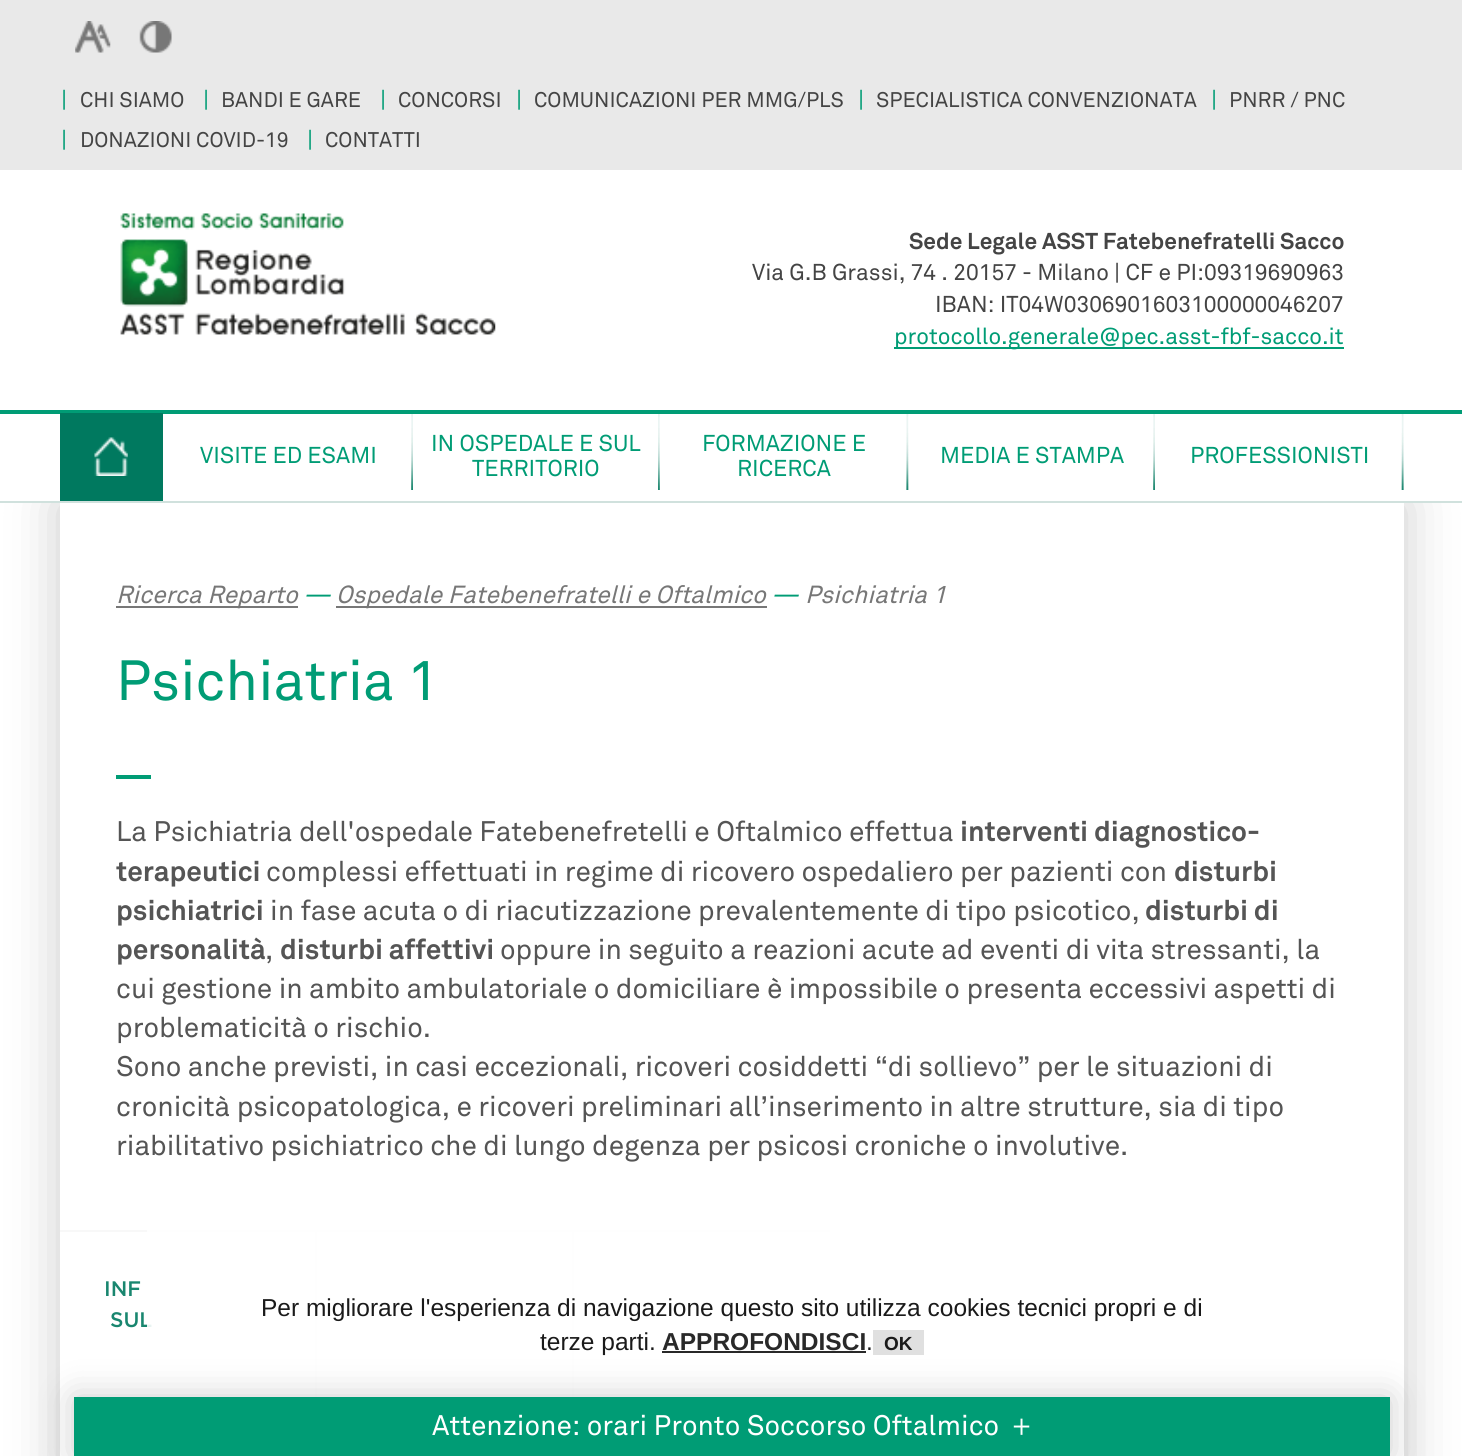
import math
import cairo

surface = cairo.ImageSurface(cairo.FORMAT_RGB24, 1462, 1456)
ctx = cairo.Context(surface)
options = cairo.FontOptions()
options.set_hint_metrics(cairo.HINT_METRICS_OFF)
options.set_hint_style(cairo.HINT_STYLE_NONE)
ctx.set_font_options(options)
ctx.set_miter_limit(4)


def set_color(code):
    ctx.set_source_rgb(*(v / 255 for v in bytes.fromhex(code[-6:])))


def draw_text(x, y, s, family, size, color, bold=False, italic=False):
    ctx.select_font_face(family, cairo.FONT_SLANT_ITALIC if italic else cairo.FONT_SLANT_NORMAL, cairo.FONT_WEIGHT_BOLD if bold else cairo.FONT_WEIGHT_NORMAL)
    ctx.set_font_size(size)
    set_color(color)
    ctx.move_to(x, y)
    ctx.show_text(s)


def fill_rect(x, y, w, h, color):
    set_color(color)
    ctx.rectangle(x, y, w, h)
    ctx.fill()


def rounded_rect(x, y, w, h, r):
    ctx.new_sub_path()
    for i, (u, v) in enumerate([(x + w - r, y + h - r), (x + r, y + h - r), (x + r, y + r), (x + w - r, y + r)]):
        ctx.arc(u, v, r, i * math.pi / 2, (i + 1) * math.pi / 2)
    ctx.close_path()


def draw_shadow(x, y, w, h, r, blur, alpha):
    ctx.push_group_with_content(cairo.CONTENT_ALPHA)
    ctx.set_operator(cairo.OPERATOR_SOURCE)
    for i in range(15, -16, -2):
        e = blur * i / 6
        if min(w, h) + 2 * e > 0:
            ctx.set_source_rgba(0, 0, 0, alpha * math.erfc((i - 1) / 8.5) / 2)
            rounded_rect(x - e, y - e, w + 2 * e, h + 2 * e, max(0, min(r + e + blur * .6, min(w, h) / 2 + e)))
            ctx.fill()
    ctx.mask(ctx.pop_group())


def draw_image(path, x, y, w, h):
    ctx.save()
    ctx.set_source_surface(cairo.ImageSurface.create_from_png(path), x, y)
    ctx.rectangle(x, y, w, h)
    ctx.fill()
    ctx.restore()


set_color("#ffffff")
ctx.paint()
fill_rect(0, 0, 1462, 170, "#e9e9e9")
draw_image("assets/img1.png", 75, 21, 36, 32)
draw_image("assets/img2.png", 139, 21, 33, 32)
draw_text(61, 107, "|", "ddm", 22.75, "#009c75")
draw_text(80, 107, "CHI SIAMO", "ddm", 21, "#444444")
draw_text(203, 107, "|", "ddm", 22.75, "#009c75")
draw_text(221, 107, "BANDI E GARE", "ddm", 21, "#444444")
draw_text(380, 107, "|", "ddm", 22.75, "#009c75")
draw_text(398, 107, "CONCORSI", "ddm", 21, "#444444")
draw_text(516, 107, "|", "ddm", 22.75, "#009c75")
draw_text(534, 107, "COMUNICAZIONI PER MMG/PLS", "ddm", 21, "#444444")
draw_text(858, 107, "|", "ddm", 22.75, "#009c75")
draw_text(876, 107, "SPECIALISTICA CONVENZIONATA", "ddm", 21, "#444444")
draw_text(1211, 107, "|", "ddm", 22.75, "#009c75")
draw_text(1229, 107, "PNRR / PNC", "ddm", 21, "#444444")
draw_text(61, 147, "|", "ddm", 22.75, "#009c75")
draw_text(80, 147, "DONAZIONI COVID-19", "ddm", 21, "#444444")
draw_text(307, 147, "|", "ddm", 22.75, "#009c75")
draw_text(325, 147, "CONTATTI", "ddm", 21, "#444444")
draw_image("assets/img3.png", 120, 213, 376, 122)
draw_text(909, 249, "Sede Legale ASST Fatebenefratelli Sacco", "ddm", 22.75, "#444444", bold=True)
draw_text(752, 280, "Via G.B Grassi, 74 . 20157 - Milano | CF e PI:09319690963", "ddm", 22.75, "#444444")
draw_text(935, 312, "IBAN: IT04W0306901603100000046207", "ddm", 22.75, "#444444")
fill_rect(894, 347, 450, 2, "#009c75")
draw_text(894, 344, "protocollo.generale@pec.asst-fbf-sacco.it", "ddm", 22.75, "#009c75")
fill_rect(0, 410, 1462, 4, "#009c75")
ctx.save()
ctx.rectangle(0, 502, 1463, 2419)
ctx.clip()
ctx.set_fill_rule(cairo.FILL_RULE_EVEN_ODD)
ctx.new_path()
ctx.move_to(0, 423)
ctx.line_to(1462, 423)
ctx.line_to(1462, 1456)
ctx.line_to(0, 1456)
ctx.close_path()
ctx.move_to(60, 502)
ctx.line_to(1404, 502)
ctx.line_to(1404, 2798)
ctx.line_to(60, 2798)
ctx.close_path()
ctx.clip()
set_color("#cccccc")
draw_shadow(60, 502, 1344, 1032, 0, 26, 1)
ctx.restore()
fill_rect(0, 501, 1462, 2, "#d0e1dd")
fill_rect(60, 413, 103, 88, "#00795f")
draw_image("assets/img4.png", 94, 437, 34, 39)
draw_image("assets/img5.png", 411, 414, 2, 76)
draw_image("assets/img6.png", 411, 414, 2, 76)
draw_text(200, 463, "VISITE ED ESAMI", "ddm", 22.75, "#009c75")
draw_image("assets/img7.png", 658, 414, 2, 76)
draw_image("assets/img8.png", 658, 414, 2, 76)
draw_text(431, 451, "IN OSPEDALE E SUL", "ddm", 22.75, "#009c75")
draw_text(472, 476, "TERRITORIO", "ddm", 22.75, "#009c75")
draw_image("assets/img9.png", 906, 414, 3, 76)
draw_image("assets/img10.png", 906, 414, 3, 76)
draw_text(702, 451, "FORMAZIONE E", "ddm", 22.75, "#009c75")
draw_text(737, 476, "RICERCA", "ddm", 22.75, "#009c75")
draw_image("assets/img5.png", 1153, 414, 2, 76)
draw_image("assets/img6.png", 1153, 414, 2, 76)
draw_text(940, 463, "MEDIA E STAMPA", "ddm", 22.75, "#009c75")
draw_image("assets/img11.png", 1401, 414, 3, 76)
draw_image("assets/img12.png", 1401, 414, 3, 76)
draw_text(1190, 463, "PROFESSIONISTI", "ddm", 22.75, "#009c75")
fill_rect(116, 606, 182, 2, "#777777")
draw_text(116, 603, "Ricerca Reparto", "ddm", 24.5, "#777777", italic=True)
draw_text(303, 603, "—", "ddm", 24.5, "#009c75", italic=True)
fill_rect(336, 606, 431, 2, "#777777")
draw_text(336, 603, "Ospedale Fatebenefratelli e Oftalmico", "ddm", 24.5, "#777777", italic=True)
draw_text(771, 603, "—", "ddm", 24.5, "#009c75", italic=True)
draw_text(805, 603, "Psichiatria 1", "ddm", 24.5, "#777777", italic=True)
draw_text(116, 700, "Psichiatria 1", "ddm", 56, "#009c75")
fill_rect(116, 775, 35, 4, "#009c75")
draw_text(116, 841, "La Psichiatria dell'ospedale Fatebenefretelli e Oftalmico effettua", "ddm", 28, "#555555")
draw_text(960, 841, "interventi diagnostico-", "ddm", 28, "#555555", bold=True)
draw_text(116, 881, "terapeutici", "ddm", 28, "#555555", bold=True)
draw_text(266, 881, "complessi effettuati in regime di ricovero ospedaliero per pazienti con", "ddm", 28, "#555555")
draw_text(1174, 881, "disturbi", "ddm", 28, "#555555", bold=True)
draw_text(116, 920, "psichiatrici", "ddm", 28, "#555555", bold=True)
draw_text(270, 920, "in fase acuta o di riacutizzazione prevalentemente di tipo psicotico,", "ddm", 28, "#555555")
draw_text(1145, 920, "disturbi di", "ddm", 28, "#555555", bold=True)
draw_text(116, 959, "personalità", "ddm", 28, "#555555", bold=True)
draw_text(265, 959, ",", "ddm", 28, "#555555")
draw_text(280, 959, "disturbi affettivi", "ddm", 28, "#555555", bold=True)
draw_text(500, 959, "oppure in seguito a reazioni acute ad eventi di vita stressanti, la", "ddm", 28, "#555555")
draw_text(116, 998, "cui gestione in ambito ambulatoriale o domiciliare è impossibile o presenta eccessivi aspetti di", "ddm", 28, "#555555")
draw_text(116, 1037, "problematicità o rischio.", "ddm", 28, "#555555")
draw_text(116, 1076, "Sono anche previsti, in casi eccezionali, ricoveri cosiddetti “di sollievo” per le situazioni di", "ddm", 28, "#555555")
draw_text(116, 1116, "cronicità psicopatologica, e ricoveri preliminari all’inserimento in altre strutture, sia di tipo", "ddm", 28, "#555555")
draw_text(116, 1155, "riabilitativo psichiatrico che di lungo degenza per psicosi croniche o involutive.", "ddm", 28, "#555555")
fill_rect(60, 1230, 770, 2, "#f8f8f8")
fill_rect(315, 1230, 2, 167, "#f8f8f8")
draw_text(104, 1296, "INF", "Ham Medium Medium", 21, "#19866f")
draw_text(110, 1327, "SUL", "Ham Medium Medium", 21, "#19866f")
fill_rect(572, 1230, 2, 167, "#f8f8f8")
ctx.set_source_rgba(1, 1, 1, 0.9)
ctx.rectangle(147, 1230, 683, 167)
ctx.fill()
fill_rect(662, 1351, 204, 2, "#292929")
fill_rect(873, 1330, 51, 25, "#e0e0e0")
set_color("#000000")
draw_shadow(74, 1397, 1316, 59, 0, 17.5, 0.2)
fill_rect(74, 1397, 1316, 59, "#009c75")
draw_text(432, 1435, "Attenzione: orari Pronto Soccorso Oftalmico  +", "ddm", 28, "#ffffff")
draw_text(261, 1316, "Per migliorare l'esperienza di navigazione questo sito utilizza cookies tecnici propri e di", "Liberation Sans", 24.5, "#1a1a1a")
draw_text(540, 1350, "terze parti.", "Liberation Sans", 24.5, "#1a1a1a")
draw_text(662, 1350, "APPROFONDISCI", "Liberation Sans", 24.5, "#292929", bold=True)
draw_text(866, 1350, ".", "Liberation Sans", 24.5, "#1a1a1a")
draw_text(884, 1350, "OK", "Liberation Sans", 19, "#1a1a1a", bold=True)
surface.write_to_png("output.png")
